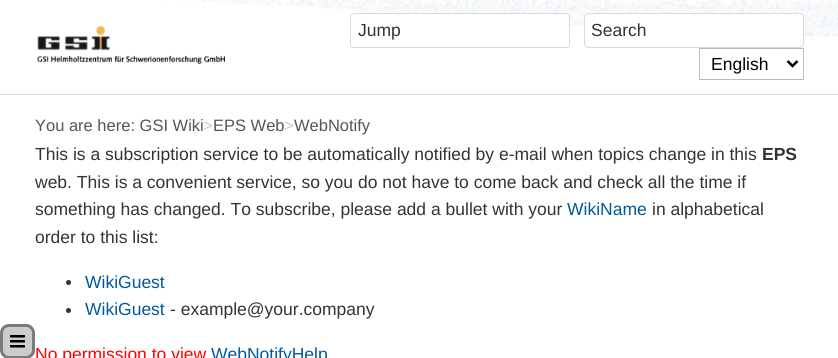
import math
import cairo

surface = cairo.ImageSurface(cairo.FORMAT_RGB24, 838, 358)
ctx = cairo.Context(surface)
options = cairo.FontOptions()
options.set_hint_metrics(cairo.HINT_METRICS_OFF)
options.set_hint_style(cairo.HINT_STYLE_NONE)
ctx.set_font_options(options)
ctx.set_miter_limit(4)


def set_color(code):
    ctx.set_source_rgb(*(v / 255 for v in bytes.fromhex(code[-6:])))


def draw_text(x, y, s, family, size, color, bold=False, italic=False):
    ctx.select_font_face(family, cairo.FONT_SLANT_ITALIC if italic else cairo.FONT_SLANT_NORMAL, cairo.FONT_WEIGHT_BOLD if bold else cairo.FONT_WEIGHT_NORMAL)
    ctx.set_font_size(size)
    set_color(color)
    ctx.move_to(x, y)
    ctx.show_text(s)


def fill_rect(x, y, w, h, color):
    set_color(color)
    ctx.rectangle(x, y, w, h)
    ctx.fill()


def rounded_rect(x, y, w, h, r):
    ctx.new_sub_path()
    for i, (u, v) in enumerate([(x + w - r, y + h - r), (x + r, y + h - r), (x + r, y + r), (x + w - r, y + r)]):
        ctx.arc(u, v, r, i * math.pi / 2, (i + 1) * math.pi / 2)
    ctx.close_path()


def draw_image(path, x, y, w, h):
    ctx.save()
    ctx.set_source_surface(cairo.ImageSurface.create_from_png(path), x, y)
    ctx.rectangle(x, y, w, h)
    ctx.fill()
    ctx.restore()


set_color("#dfdfdf")
ctx.paint()
fill_rect(0, 0, 838, 94, "#ffffff")
draw_image("assets/img1.png", 162, 0, 676, 37)
draw_image("assets/img2.png", 37, 25, 188, 39)
rounded_rect(350.5, 13.5, 219, 34, 3.5)
ctx.fill_preserve()
set_color("#dadada")
ctx.set_line_width(1)
ctx.stroke()
draw_text(358, 36, "Jump", "Liberation Sans", 17.5, "#333333")
set_color("#ffffff")
rounded_rect(584.5, 13.5, 219, 34, 3.5)
ctx.fill_preserve()
set_color("#dadada")
ctx.stroke()
draw_text(591, 36, "Search", "Liberation Sans", 17.5, "#333333")
ctx.rectangle(699.5, 48.5, 104, 31)
set_color("#bbbbbb")
ctx.stroke()
ctx.new_path()
ctx.move_to(787.5, 61)
ctx.line_to(792.5, 66)
ctx.line_to(797.5, 61)
set_color("#000000")
ctx.set_line_width(2.5)
ctx.stroke()
draw_text(711, 70, "English", "Liberation Sans", 17.5, "#000000")
fill_rect(0, 95, 838, 263, "#ffffff")
set_color("#cccccc")
rounded_rect(0, 324, 35, 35, 9)
ctx.fill()
rounded_rect(1.5, 325.5, 32, 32, 7.5)
ctx.set_source_rgba(0, 0, 0, 0.4)
ctx.set_line_width(3)
ctx.stroke()
draw_image("assets/img3.png", 10, 335, 15, 13)
draw_text(35, 131, "You are here: GSI Wiki", "Liberation Sans", 16.5, "#565656")
draw_text(203, 131, ">", "Liberation Sans", 16.5, "#cccccc")
draw_text(213, 131, "EPS Web", "Liberation Sans", 16.5, "#565656")
draw_text(284, 131, ">", "Liberation Sans", 16.5, "#cccccc")
draw_text(294, 131, "WebNotify", "Liberation Sans", 16.5, "#565656")
draw_text(35, 160, "This is a subscription service to be automatically notified by e-mail when topics change in this", "Liberation Sans", 17.5, "#333333")
draw_text(762, 160, "EPS", "Liberation Sans", 17.5, "#333333", bold=True)
draw_text(35, 188, "web. This is a convenient service, so you do not have to come back and check all the time if", "Liberation Sans", 17.5, "#333333")
draw_text(35, 215, "something has changed. To subscribe, please add a bullet with your", "Liberation Sans", 17.5, "#333333")
draw_text(567, 215, "WikiName", "Liberation Sans", 17.5, "#00599c")
draw_text(652, 215, "in alphabetical", "Liberation Sans", 17.5, "#333333")
draw_text(35, 243, "order to this list:", "Liberation Sans", 17.5, "#333333")
ctx.new_path()
ctx.arc(68.5, 282.5, 2.5, 0, 2 * math.pi)
ctx.fill()
draw_text(85, 288, "WikiGuest", "Liberation Sans", 17.5, "#00599c")
set_color("#333333")
ctx.new_path()
ctx.arc(68.5, 310.5, 2.5, 0, 2 * math.pi)
ctx.fill()
draw_text(85, 315, "WikiGuest", "Liberation Sans", 17.5, "#00599c")
draw_text(170, 315, "- example@your.company", "Liberation Sans", 17.5, "#333333")
draw_text(35, 360, "No permission to view", "Liberation Sans", 17.5, "#ff0000")
draw_text(211, 360, "WebNotifyHelp", "Liberation Sans", 17.5, "#00599c")
surface.write_to_png("output.png")
